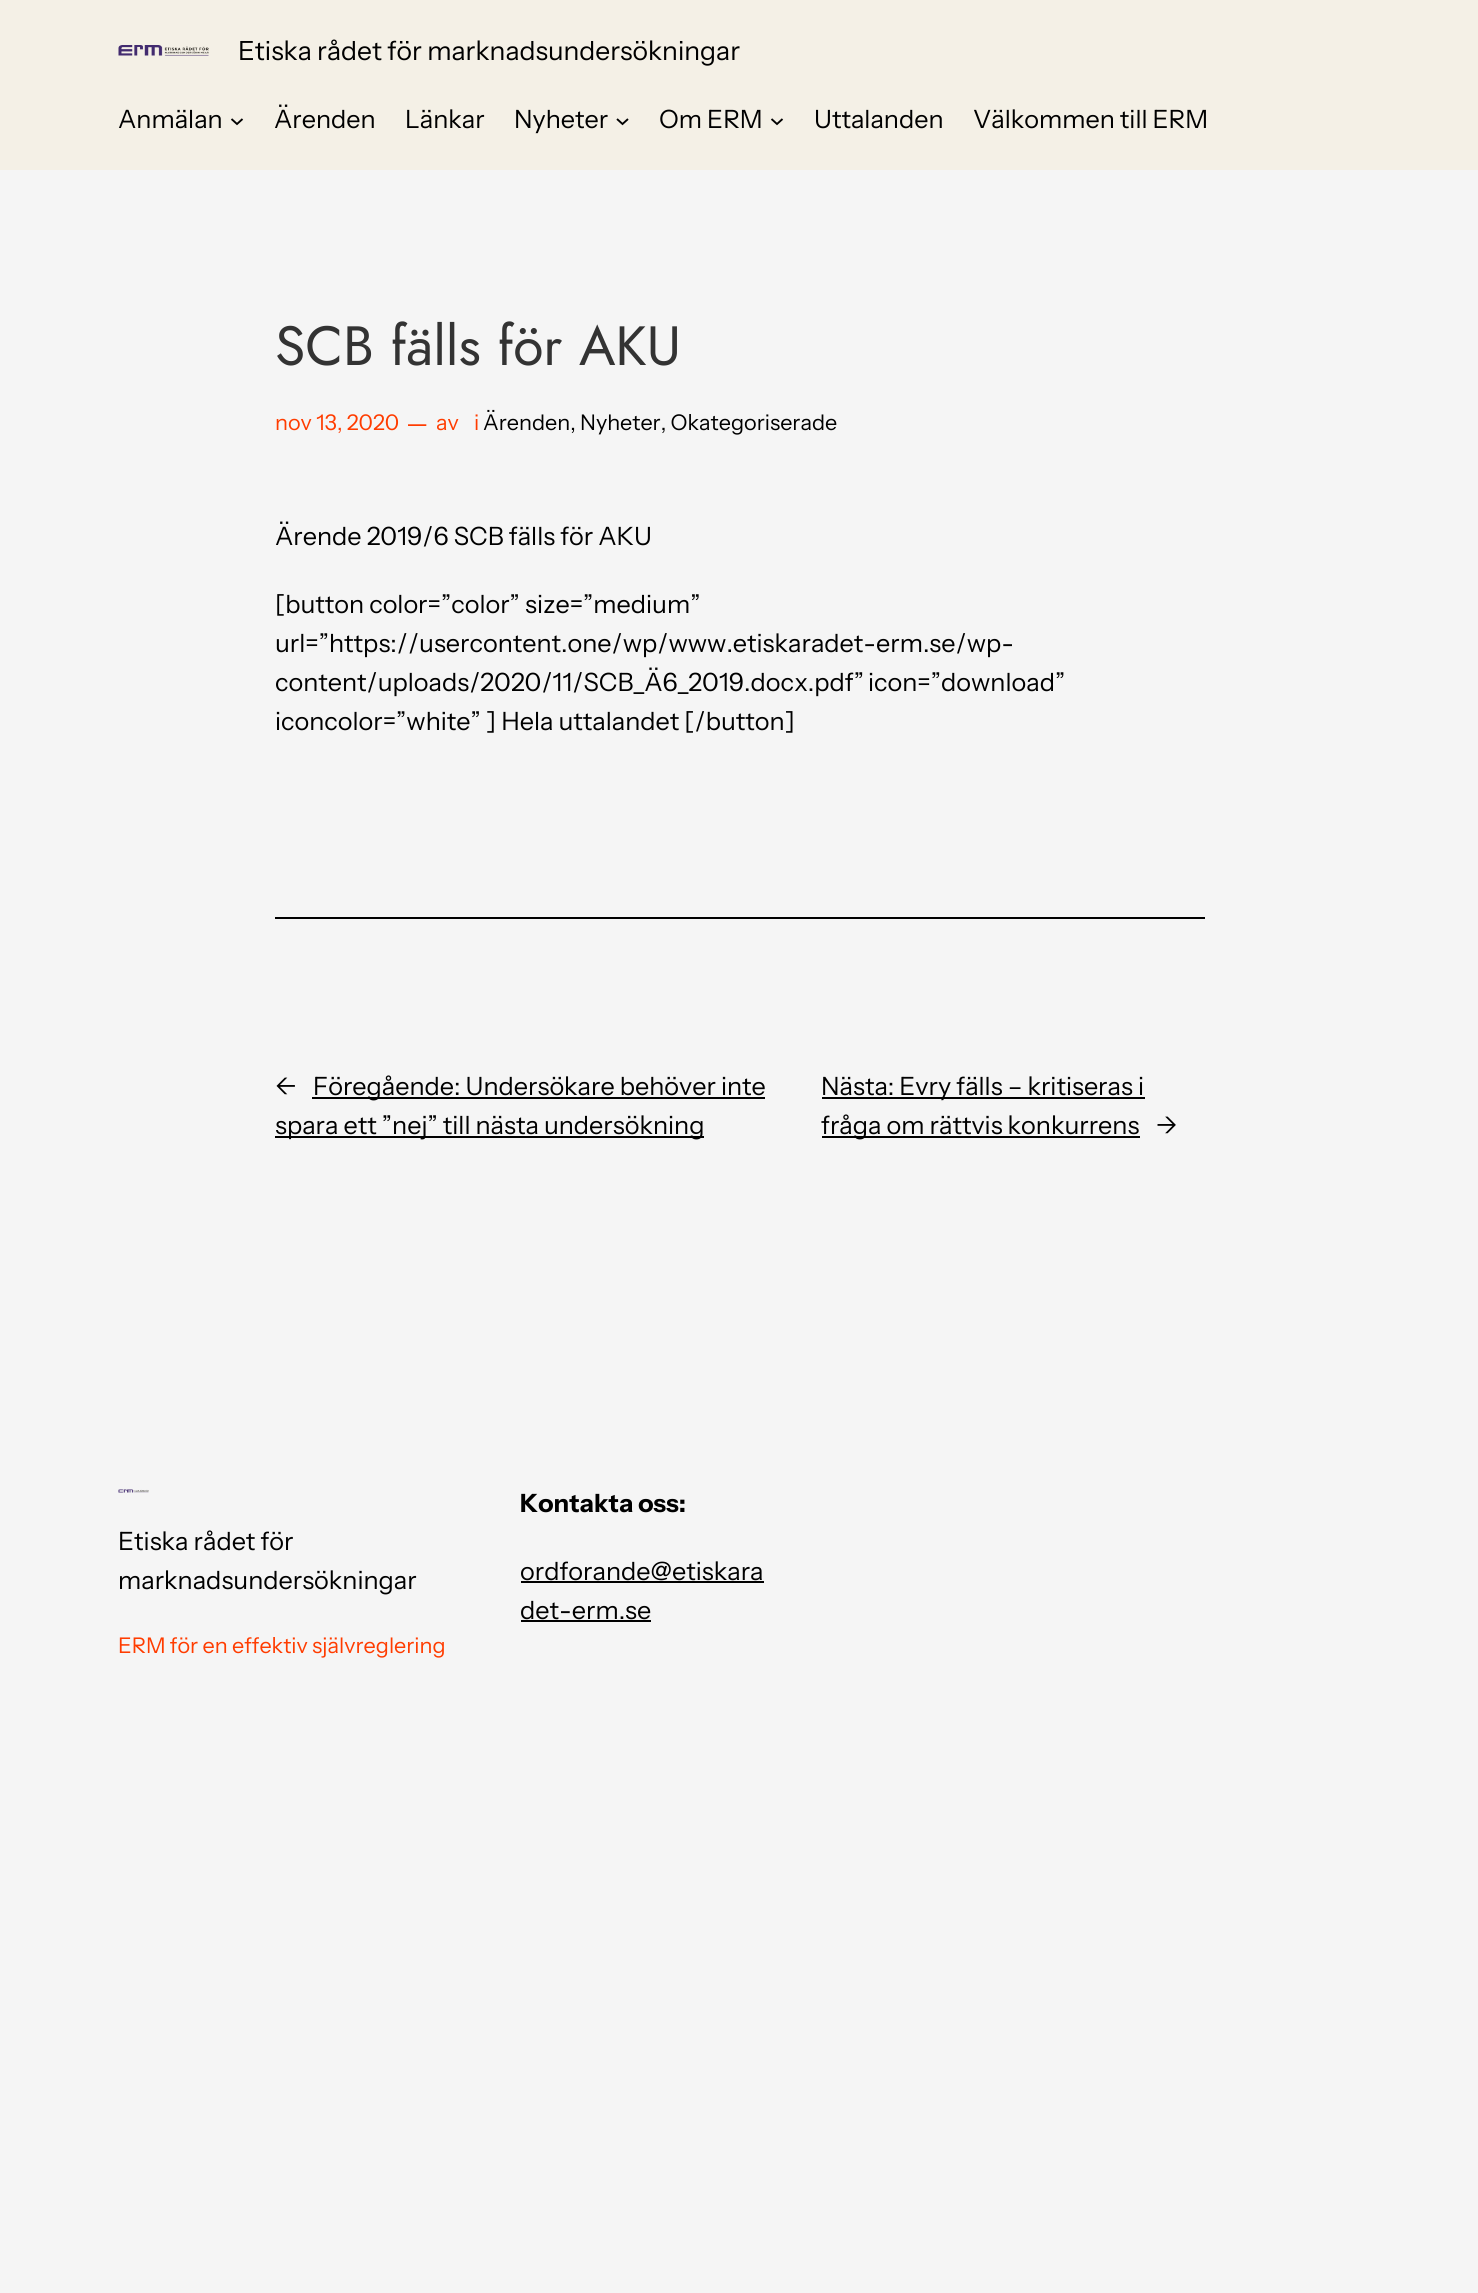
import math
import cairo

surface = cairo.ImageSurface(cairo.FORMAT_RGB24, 1478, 2293)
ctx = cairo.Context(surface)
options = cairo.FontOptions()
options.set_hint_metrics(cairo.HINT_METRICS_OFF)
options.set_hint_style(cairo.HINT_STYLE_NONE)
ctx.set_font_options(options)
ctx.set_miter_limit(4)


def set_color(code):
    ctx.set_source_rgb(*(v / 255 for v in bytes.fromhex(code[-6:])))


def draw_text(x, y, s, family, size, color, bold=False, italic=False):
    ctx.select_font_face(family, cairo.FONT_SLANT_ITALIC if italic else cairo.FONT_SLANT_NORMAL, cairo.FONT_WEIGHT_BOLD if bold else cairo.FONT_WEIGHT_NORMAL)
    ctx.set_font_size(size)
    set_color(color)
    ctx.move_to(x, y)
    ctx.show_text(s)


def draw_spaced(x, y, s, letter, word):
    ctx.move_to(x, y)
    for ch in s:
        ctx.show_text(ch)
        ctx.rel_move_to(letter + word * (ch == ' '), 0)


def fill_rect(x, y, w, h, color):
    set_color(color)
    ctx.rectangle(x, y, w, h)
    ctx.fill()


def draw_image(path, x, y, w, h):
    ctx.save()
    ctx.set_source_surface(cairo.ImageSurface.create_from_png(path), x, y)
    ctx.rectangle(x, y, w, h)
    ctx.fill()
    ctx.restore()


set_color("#f5f5f5")
ctx.paint()
fill_rect(0, 0, 1478, 170, "#f4f0e6")
draw_image("assets/img1.png", 118, 45, 91, 11)
draw_text(238, 60, "Etiska rådet för marknadsundersökningar", "Instrument Sans", 26.4, "#000000")
draw_text(118, 128, "Anmälan", "Instrument Sans", 25.2, "#000000")
ctx.new_path()
ctx.move_to(231.5, 119)
ctx.line_to(237, 124)
ctx.line_to(242.5, 119)
ctx.set_line_width(1.9)
ctx.stroke()
draw_text(274, 128, "Ärenden", "Instrument Sans", 25.2, "#000000")
draw_text(405, 128, "Länkar", "Instrument Sans", 25.2, "#000000")
draw_text(514, 128, "Nyheter", "Instrument Sans", 25.2, "#000000")
ctx.new_path()
ctx.move_to(617, 119)
ctx.line_to(622.5, 124)
ctx.line_to(628, 119)
ctx.stroke()
draw_text(659, 128, "Om ERM", "Instrument Sans", 25.2, "#000000")
ctx.new_path()
ctx.move_to(771.5, 119)
ctx.line_to(777, 124)
ctx.line_to(782.5, 119)
ctx.stroke()
draw_text(814, 128, "Uttalanden", "Instrument Sans", 25.2, "#000000")
draw_text(973, 128, "Välkommen till ERM", "Instrument Sans", 25.2, "#000000")
draw_text(275, 365, "SCB fälls för AKU", "Jost", 55.25, "#333333")
draw_text(275, 430, "nov 13, 2020", "Instrument Sans", 21.6, "#ff3c00")
draw_text(406, 432, "—", "Instrument Sans", 25.2, "#ff3c00")
draw_text(436, 430, "av", "Instrument Sans", 21.6, "#ff3c00")
draw_text(474, 430, "i", "Instrument Sans", 21.6, "#ff3c00")
draw_text(483, 430, "Ärenden, Nyheter, Okategoriserade", "Instrument Sans", 21.6, "#000000")
draw_text(275, 545, "Ärende 2019/6 SCB fälls för AKU", "Instrument Sans", 25.2, "#000000")
draw_text(275, 613, "[button color=”color” size=”medium”", "Instrument Sans", 25.2, "#000000")
draw_text(275, 652, "url=”https://usercontent.one/wp/www.etiskaradet-erm.se/wp-", "Instrument Sans", 25.2, "#000000")
draw_spaced(275, 691, "content/uploads/2020/11/SCB_Ä6_2019.docx.pdf” icon=”download”", 0, -1)
draw_text(275, 730, "iconcolor=”white” ] Hela uttalandet [/button]", "Instrument Sans", 25.2, "#000000")
fill_rect(275, 917, 930, 2, "#000000")
draw_text(275, 1095, "←", "Instrument Sans", 25.2, "#000000")
fill_rect(312, 1097, 453, 2, "#000000")
draw_text(313, 1095, "Föregående: Undersökare behöver inte", "Instrument Sans", 25.2, "#000000")
fill_rect(275, 1136, 429, 2, "#000000")
draw_text(275, 1134, "spara ett ”nej” till nästa undersökning", "Instrument Sans", 25.2, "#000000")
fill_rect(822, 1097, 323, 2, "#000000")
draw_text(821, 1095, "Nästa: Evry fälls – kritiseras i", "Instrument Sans", 25.2, "#000000")
fill_rect(822, 1136, 318, 2, "#000000")
draw_text(821, 1134, "fråga om rättvis konkurrens", "Instrument Sans", 25.2, "#000000")
draw_text(1156, 1134, "→", "Instrument Sans", 25.2, "#000000")
draw_image("assets/img2.png", 118, 1489, 31, 4)
draw_text(118, 1550, "Etiska rådet för", "Instrument Sans", 25.2, "#000000")
draw_text(118, 1589, "marknadsundersökningar", "Instrument Sans", 25.2, "#000000")
draw_text(118, 1653, "ERM för en effektiv självreglering", "Instrument Sans", 21.6, "#ff3c00")
draw_text(520, 1512, "Kontakta oss:", "Instrument Sans", 25.2, "#000000", bold=True)
draw_text(520, 1580, "ordforande@etiskara", "Instrument Sans", 25.2, "#000000")
fill_rect(521, 1581, 243, 2, "#000000")
draw_text(520, 1619, "det-erm.se", "Instrument Sans", 25.2, "#000000")
fill_rect(521, 1620, 130, 2, "#000000")
surface.write_to_png("output.png")
